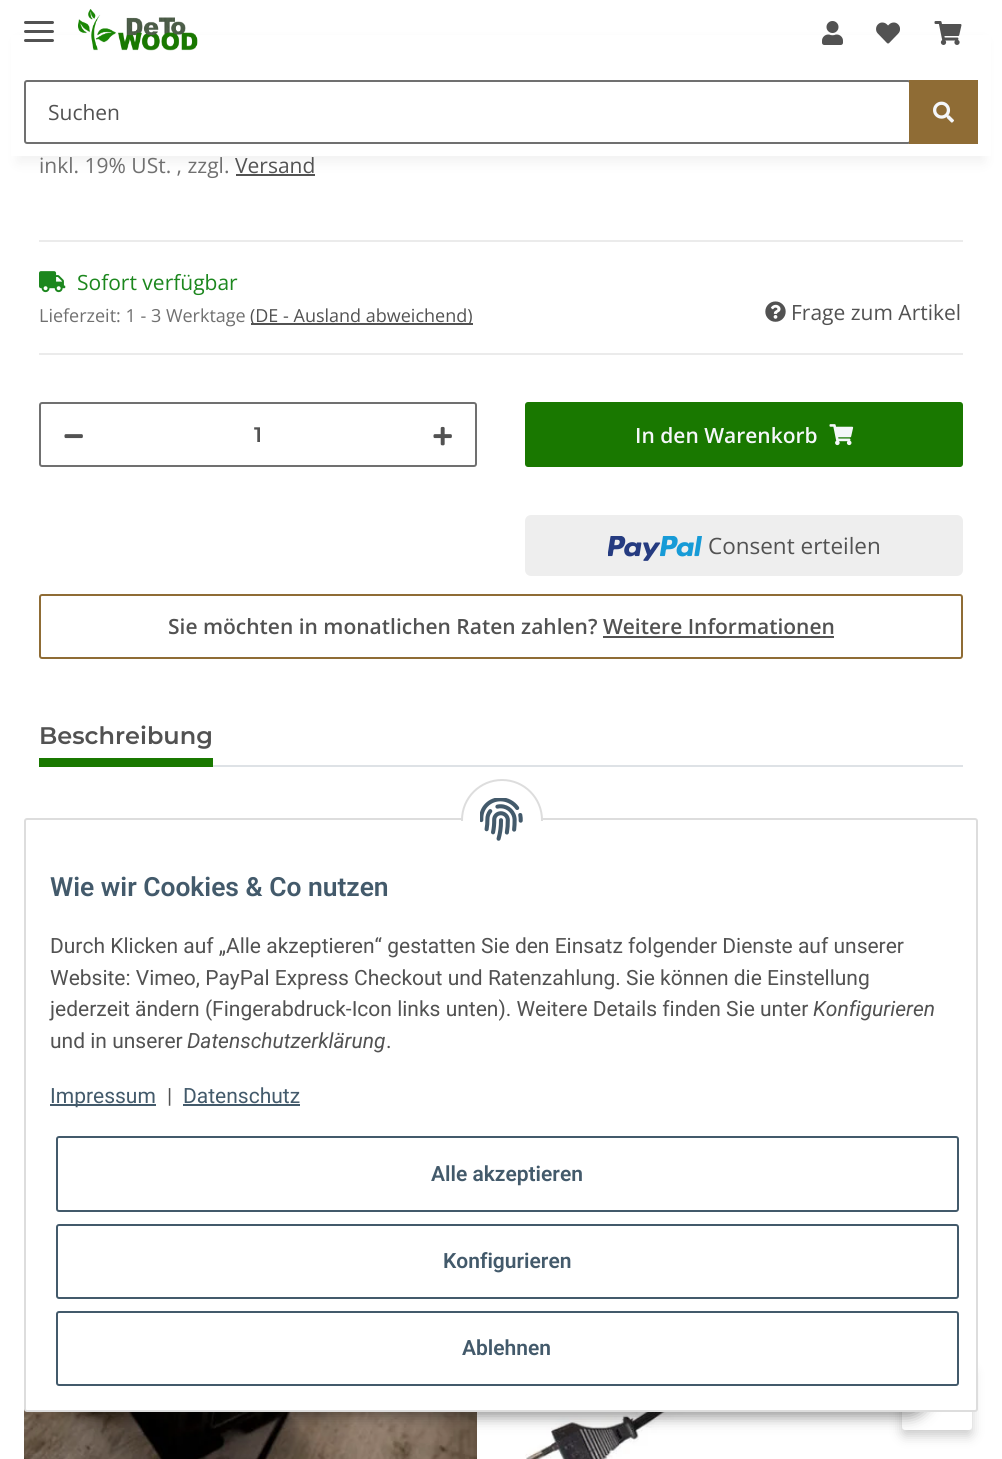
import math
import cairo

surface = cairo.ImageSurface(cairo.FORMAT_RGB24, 1002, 1459)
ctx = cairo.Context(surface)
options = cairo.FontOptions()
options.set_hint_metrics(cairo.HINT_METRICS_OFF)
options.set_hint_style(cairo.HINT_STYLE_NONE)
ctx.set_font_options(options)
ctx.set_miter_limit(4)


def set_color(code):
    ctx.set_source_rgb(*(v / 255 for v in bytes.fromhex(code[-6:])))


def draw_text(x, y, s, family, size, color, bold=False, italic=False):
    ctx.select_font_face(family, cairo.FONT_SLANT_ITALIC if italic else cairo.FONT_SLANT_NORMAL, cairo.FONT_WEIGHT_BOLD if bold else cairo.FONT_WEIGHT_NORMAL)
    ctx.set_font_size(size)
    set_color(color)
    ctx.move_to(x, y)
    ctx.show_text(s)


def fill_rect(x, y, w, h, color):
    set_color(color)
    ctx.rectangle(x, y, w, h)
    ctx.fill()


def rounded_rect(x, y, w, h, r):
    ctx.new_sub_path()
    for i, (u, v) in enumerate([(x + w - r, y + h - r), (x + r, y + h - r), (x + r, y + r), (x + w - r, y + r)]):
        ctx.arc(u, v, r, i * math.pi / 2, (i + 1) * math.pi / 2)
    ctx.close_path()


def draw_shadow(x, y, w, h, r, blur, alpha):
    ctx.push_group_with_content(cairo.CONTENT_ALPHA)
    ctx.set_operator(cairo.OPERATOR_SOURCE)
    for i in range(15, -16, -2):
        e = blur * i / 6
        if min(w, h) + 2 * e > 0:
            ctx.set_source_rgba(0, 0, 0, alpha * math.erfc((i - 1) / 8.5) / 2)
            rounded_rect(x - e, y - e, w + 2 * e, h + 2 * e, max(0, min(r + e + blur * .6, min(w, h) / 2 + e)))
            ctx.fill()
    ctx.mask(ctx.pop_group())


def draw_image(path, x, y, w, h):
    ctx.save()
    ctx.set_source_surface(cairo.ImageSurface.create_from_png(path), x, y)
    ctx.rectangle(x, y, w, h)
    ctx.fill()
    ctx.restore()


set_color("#ffffff")
ctx.paint()
fill_rect(236, 174, 79, 2, "#525252")
set_color("#000000")
draw_shadow(18, 42, 966, 120, 0, 7, 0.06)
fill_rect(11, 35, 980, 121, "#ffffff")
set_color("#525252")
rounded_rect(24, 30, 30, 3, 1.5)
ctx.fill()
rounded_rect(24, 21, 30, 3, 1.5)
ctx.fill()
rounded_rect(24, 39, 30, 3, 1.5)
ctx.fill()
draw_image("assets/img1.png", 78, 9, 120, 42)
draw_image("assets/img2.png", 822, 21, 21, 24)
draw_image("assets/img3.png", 876, 22, 24, 22)
draw_image("assets/img4.png", 934, 21, 28, 24)
rounded_rect(25, 81, 885, 62, 2)
set_color("#707070")
ctx.stroke()
draw_text(48, 120, "Suchen", "Open Sans", 21, "#525252")
fill_rect(909, 80, 69, 64, "#8f6c35")
draw_image("assets/img5.png", 933, 101, 21, 22)
draw_text(39, 173, "inkl. 19% USt. , zzgl.", "Open Sans", 21, "#707070")
draw_text(235, 173, "Versand", "Open Sans", 21, "#525252")
fill_rect(39, 240, 924, 2, "#ebebeb")
fill_rect(39, 353, 924, 2, "#ebebeb")
draw_image("assets/img6.png", 39, 271, 27, 22)
draw_text(77, 290, "Sofort verfügbar", "Open Sans", 21, "#1c871e")
draw_text(39, 322, "Lieferzeit: 1 - 3 Werktage", "Open Sans", 18, "#707070")
fill_rect(251, 323, 222, 2, "#525252")
draw_text(250, 322, "(DE - Ausland abweichend)", "Open Sans", 18, "#525252")
draw_image("assets/img7.png", 765, 301, 21, 21)
draw_text(791, 320, "Frage zum Artikel", "Open Sans", 21, "#525252")
rounded_rect(40, 403, 436, 63, 2)
set_color("#707070")
ctx.stroke()
draw_image("assets/img8.png", 64, 434, 19, 5)
draw_text(254, 442, "1", "Montserrat SemiBold", 21, "#525252")
draw_image("assets/img9.png", 433, 426, 19, 20)
set_color("#197800")
rounded_rect(526, 403, 436, 63, 2)
ctx.fill_preserve()
ctx.stroke()
draw_text(635, 443, "In den Warenkorb", "Open Sans SemiBold", 21, "#f5f7fa")
draw_image("assets/img10.png", 829, 424, 25, 22)
set_color("#eeeeee")
rounded_rect(525, 515, 438, 61, 6)
ctx.fill()
draw_image("assets/img11.png", 608, 536, 94, 25)
draw_text(708, 554, "Consent erteilen", "Open Sans", 22.5, "#525252")
rounded_rect(40, 595, 922, 63, 2)
set_color("#8f6c35")
ctx.stroke()
draw_text(168, 634, "Sie möchten in monatlichen Raten zahlen? Weitere Informationen", "Open Sans SemiBold", 21, "#525252")
fill_rect(603, 636, 231, 2, "#525252")
fill_rect(213, 765, 750, 2, "#dee2e6")
draw_text(39, 744, "Beschreibung", "Montserrat SemiBold", 24, "#525252")
fill_rect(39, 758, 174, 9, "#197800")
draw_image("assets/img12.png", 24, 1409, 453, 50)
draw_image("assets/img13.png", 525, 1409, 453, 50)
set_color("#000000")
draw_shadow(902, 1370, 70, 66, 3, 6, 0.2)
set_color("#ffffff")
rounded_rect(902, 1364, 70, 66, 3)
ctx.fill()
set_color("#000000")
draw_shadow(74, 1368, 855, 48, 24, 7.5, 0.45)
set_color("#ffffff")
rounded_rect(25, 819, 952, 592, 2)
ctx.fill_preserve()
set_color("#dddddd")
ctx.stroke()
set_color("#ffffff")
ctx.arc(502, 820, 40, 0, 2 * math.pi)
ctx.fill_preserve()
set_color("#dddddd")
ctx.stroke()
fill_rect(461, 821, 82, 40, "#ffffff")
draw_image("assets/img14.png", 480, 798, 43, 43)
draw_text(50, 896, "Wie wir Cookies & Co nutzen", "Roboto SemiBold", 26.4, "#435a6b")
draw_text(50, 953, "Durch Klicken auf „Alle akzeptieren“ gestatten Sie den Einsatz folgender Dienste auf unserer", "Roboto", 21, "#525252")
draw_text(50, 985, "Website: Vimeo, PayPal Express Checkout und Ratenzahlung. Sie können die Einstellung", "Roboto", 21, "#525252")
draw_text(50, 1016, "jederzeit ändern (Fingerabdruck-Icon links unten). Weitere Details finden Sie unter", "Roboto", 21, "#525252")
draw_text(813, 1016, "Konfigurieren", "Roboto", 21, "#525252", italic=True)
draw_text(50, 1048, "und in unserer", "Roboto", 21, "#525252")
draw_text(187, 1048, "Datenschutzerklärung", "Roboto", 21, "#525252", italic=True)
draw_text(386, 1048, ".", "Roboto", 21, "#525252")
fill_rect(50, 1104, 106, 2, "#435a6b")
draw_text(50, 1103, "Impressum", "Roboto", 21, "#435a6b")
draw_text(167, 1103, "|", "Roboto", 21, "#525252")
draw_text(183, 1103, "Datenschutz", "Roboto", 21, "#435a6b")
fill_rect(183, 1104, 117, 2, "#435a6b")
rounded_rect(57, 1137, 901, 74, 2)
ctx.stroke()
draw_text(431, 1181, "Alle akzeptieren", "Roboto SemiBold", 21, "#435a6b")
rounded_rect(57, 1225, 901, 73, 2)
ctx.stroke()
draw_text(443, 1268, "Konfigurieren", "Roboto SemiBold", 21, "#435a6b")
rounded_rect(57, 1312, 901, 73, 2)
ctx.stroke()
draw_text(462, 1355, "Ablehnen", "Roboto SemiBold", 21, "#435a6b")
surface.write_to_png("output.png")
